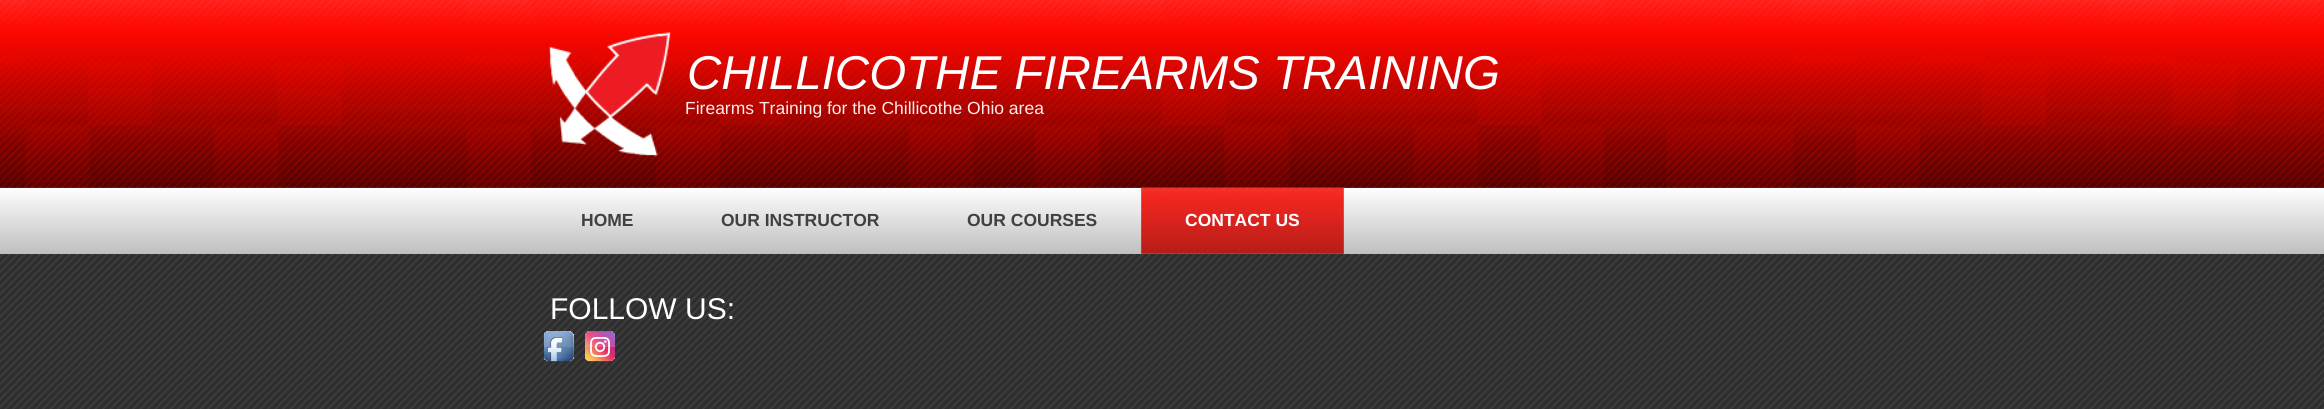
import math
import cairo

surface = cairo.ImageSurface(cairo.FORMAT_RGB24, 2324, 409)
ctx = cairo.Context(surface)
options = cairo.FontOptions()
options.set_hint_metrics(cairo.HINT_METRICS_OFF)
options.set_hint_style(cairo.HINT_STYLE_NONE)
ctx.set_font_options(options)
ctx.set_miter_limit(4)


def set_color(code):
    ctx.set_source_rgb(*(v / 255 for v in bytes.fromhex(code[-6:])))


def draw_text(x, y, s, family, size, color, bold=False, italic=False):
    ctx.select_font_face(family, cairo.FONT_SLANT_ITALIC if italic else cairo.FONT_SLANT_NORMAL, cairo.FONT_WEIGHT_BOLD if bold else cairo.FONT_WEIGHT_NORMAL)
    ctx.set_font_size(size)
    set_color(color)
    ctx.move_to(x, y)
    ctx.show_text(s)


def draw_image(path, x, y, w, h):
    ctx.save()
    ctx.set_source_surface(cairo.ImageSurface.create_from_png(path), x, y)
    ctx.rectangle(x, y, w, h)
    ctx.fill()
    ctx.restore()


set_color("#363636")
ctx.paint()
draw_image("assets/img1.png", 0, 187, 2324, 222)
draw_image("assets/img2.png", 0, 0, 2324, 188)
draw_image("assets/img3.png", 548, 32, 123, 125)
draw_text(687, 89, "CHILLICOTHE FIREARMS TRAINING", "Liberation Sans", 47.5, "#ffffff", italic=True)
draw_text(685, 114, "Firearms Training for the Chillicothe Ohio area", "Liberation Sans", 17.5, "#ffebeb")
gradient = cairo.LinearGradient(1163, 187, 1163, 254)
gradient.add_color_stop_rgba(0, 1, 1, 1, 1)
gradient.add_color_stop_rgba(1, 0.749, 0.749, 0.749, 1)
ctx.set_source(gradient)
ctx.rectangle(0, 188, 2324, 66)
ctx.fill()
draw_text(581, 226, "HOME", "Liberation Sans", 17.5, "#404040", bold=True)
draw_text(721, 226, "OUR INSTRUCTOR", "Liberation Sans", 17.5, "#404040", bold=True)
draw_text(967, 226, "OUR COURSES", "Liberation Sans", 17.5, "#404040", bold=True)
draw_image("assets/img4.png", 1141, 187, 203, 67)
draw_text(1185, 226, "CONTACT US", "Liberation Sans", 17.5, "#ffffff", bold=True)
draw_text(550, 319, "FOLLOW US:", "Liberation Sans", 30, "#ffffff")
draw_image("assets/img5.png", 543, 331, 31, 31)
draw_image("assets/img6.png", 585, 331, 30, 31)
surface.write_to_png("output.png")
